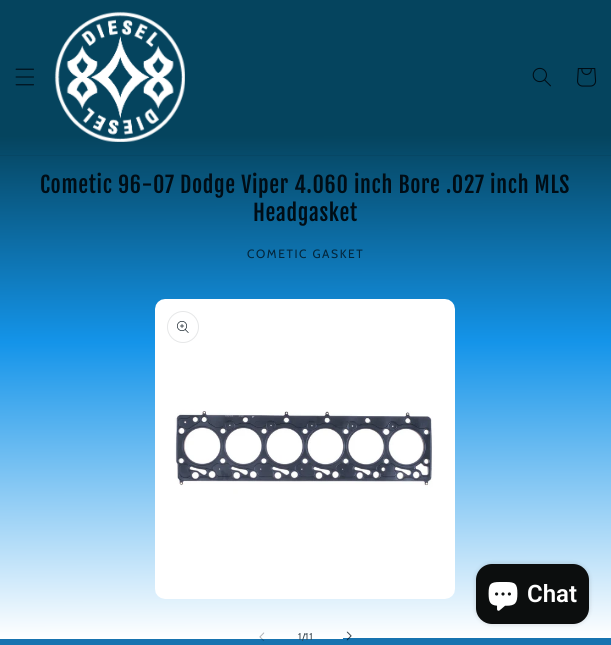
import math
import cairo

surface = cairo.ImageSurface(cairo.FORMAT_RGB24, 611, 645)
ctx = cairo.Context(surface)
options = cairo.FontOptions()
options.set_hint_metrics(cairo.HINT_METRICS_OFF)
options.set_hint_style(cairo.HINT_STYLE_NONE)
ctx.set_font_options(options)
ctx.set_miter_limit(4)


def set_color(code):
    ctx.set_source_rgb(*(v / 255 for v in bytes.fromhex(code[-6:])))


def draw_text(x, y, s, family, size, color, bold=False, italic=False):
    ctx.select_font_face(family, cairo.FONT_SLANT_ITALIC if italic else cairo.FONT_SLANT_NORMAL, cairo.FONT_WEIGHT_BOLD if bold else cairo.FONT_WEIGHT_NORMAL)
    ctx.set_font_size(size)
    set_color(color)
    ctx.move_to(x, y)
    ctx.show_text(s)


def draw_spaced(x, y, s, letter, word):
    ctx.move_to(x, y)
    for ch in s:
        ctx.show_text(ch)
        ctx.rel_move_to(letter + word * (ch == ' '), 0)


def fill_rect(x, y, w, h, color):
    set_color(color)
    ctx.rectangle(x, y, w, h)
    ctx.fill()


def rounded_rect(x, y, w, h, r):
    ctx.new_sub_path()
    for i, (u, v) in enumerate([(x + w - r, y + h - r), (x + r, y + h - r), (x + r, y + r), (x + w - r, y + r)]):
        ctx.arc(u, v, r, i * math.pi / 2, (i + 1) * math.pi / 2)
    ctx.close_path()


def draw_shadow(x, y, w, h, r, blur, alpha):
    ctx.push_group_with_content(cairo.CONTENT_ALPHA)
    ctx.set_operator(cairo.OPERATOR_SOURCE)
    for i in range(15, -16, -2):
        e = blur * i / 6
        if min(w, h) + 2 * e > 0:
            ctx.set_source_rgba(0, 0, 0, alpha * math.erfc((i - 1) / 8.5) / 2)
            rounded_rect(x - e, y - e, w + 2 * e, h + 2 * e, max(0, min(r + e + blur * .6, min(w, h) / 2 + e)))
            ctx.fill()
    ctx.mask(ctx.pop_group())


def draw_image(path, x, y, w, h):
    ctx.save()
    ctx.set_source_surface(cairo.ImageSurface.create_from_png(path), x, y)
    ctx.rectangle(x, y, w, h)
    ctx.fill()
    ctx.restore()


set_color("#ffffff")
ctx.paint()
gradient = cairo.LinearGradient(305, 0, 306, 645)
gradient.add_color_stop_rgba(0.21, 0.02, 0.267, 0.369, 1)
gradient.add_color_stop_rgba(0.53, 0.078, 0.58, 0.914, 1)
gradient.add_color_stop_rgba(0.99, 1, 1, 1, 1)
gradient.add_color_stop_rgba(0.99, 0.09, 0.451, 0.69, 1)
ctx.set_source(gradient)
ctx.rectangle(0, 0, 611, 645)
ctx.fill()
fill_rect(0, 155, 611, 1, "#064765")
draw_image("assets/img1.png", 15, 68, 19, 18)
draw_image("assets/img2.png", 54, 11, 131, 131)
draw_image("assets/img3.png", 532, 67, 19, 20)
draw_image("assets/img4.png", 577, 68, 20, 19)
ctx.select_font_face("Fjalla One")
ctx.set_font_size(22)
set_color("#000d16")
draw_spaced(40, 193, "Cometic 96-07 Dodge Viper 4.060 inch Bore .027 inch MLS", 0.65, 0)
draw_spaced(253, 221, "Headgasket", 0.65, 0)
ctx.select_font_face("Cabin")
ctx.set_font_size(12)
set_color("#03263c")
draw_spaced(247, 258, "COMETIC GASKET", 1.6, 0)
draw_image("assets/img5.png", 155, 299, 300, 300)
ctx.arc(183, 327, 15.5, 0, 2 * math.pi)
set_color("#e6e7e8")
ctx.set_line_width(1)
ctx.stroke()
draw_image("assets/img6.png", 177, 321, 12, 12)
draw_image("assets/img7.png", 259, 632, 6, 9)
ctx.set_font_size(10)
set_color("#38454e")
draw_spaced(298, 640, "1", 1, 0)
set_color("#31414b")
draw_spaced(302, 640, "/", 1, 0)
set_color("#38454e")
draw_spaced(305, 640, "11", 1, 0)
draw_image("assets/img8.png", 346, 631, 6, 10)
set_color("#000000")
draw_shadow(476, 564, 113, 60, 16, 2.5, 0.15)
set_color("#0c0e0e")
rounded_rect(476, 564, 113, 60, 16)
ctx.fill()
draw_image("assets/img9.png", 488, 582, 30, 29)
draw_text(527, 602, "Chat", "Roboto SemiBold", 24, "#ffffff")
surface.write_to_png("output.png")
